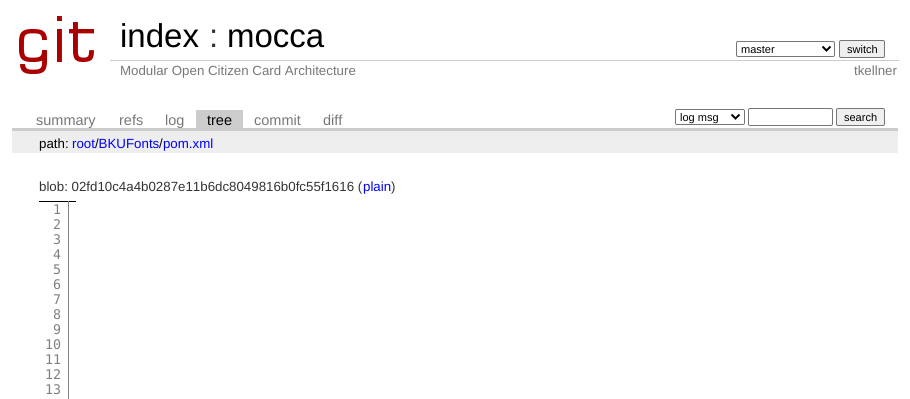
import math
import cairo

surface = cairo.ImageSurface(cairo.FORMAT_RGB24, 910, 399)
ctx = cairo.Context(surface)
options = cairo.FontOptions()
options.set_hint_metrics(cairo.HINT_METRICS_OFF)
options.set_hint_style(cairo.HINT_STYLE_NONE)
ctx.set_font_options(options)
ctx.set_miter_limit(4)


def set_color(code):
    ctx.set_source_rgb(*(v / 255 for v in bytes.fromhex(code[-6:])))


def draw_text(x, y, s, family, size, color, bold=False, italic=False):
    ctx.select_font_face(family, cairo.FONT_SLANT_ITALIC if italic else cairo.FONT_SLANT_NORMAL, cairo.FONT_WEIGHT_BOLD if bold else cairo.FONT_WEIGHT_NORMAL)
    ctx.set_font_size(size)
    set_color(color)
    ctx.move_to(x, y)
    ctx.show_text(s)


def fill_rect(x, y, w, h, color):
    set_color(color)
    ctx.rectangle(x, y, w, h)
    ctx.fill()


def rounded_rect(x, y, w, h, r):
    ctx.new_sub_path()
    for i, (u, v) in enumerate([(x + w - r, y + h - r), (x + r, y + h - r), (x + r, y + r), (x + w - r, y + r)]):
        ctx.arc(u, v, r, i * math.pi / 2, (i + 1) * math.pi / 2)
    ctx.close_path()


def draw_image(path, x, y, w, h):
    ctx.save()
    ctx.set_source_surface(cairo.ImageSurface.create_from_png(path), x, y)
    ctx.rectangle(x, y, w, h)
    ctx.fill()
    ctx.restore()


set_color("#ffffff")
ctx.paint()
draw_image("assets/img1.png", 19, 16, 75, 58)
draw_text(120, 47, "index", "Liberation Sans", 33, "#000000")
draw_text(209, 47, ":", "Liberation Sans", 33, "#333333")
draw_text(227, 47, "mocca", "Liberation Sans", 33, "#000000")
rounded_rect(736.5, 41.5, 98, 15, 1.5)
set_color("#767676")
ctx.set_line_width(1)
ctx.stroke()
ctx.new_path()
ctx.move_to(822.5, 46.5)
ctx.line_to(826.5, 50.5)
ctx.line_to(830.5, 46.5)
set_color("#000000")
ctx.set_line_width(2)
ctx.stroke()
draw_text(741, 53, "master", "Liberation Sans", 11, "#000000")
set_color("#efefef")
rounded_rect(839.5, 40.5, 45, 17, 1.5)
ctx.fill_preserve()
set_color("#767676")
ctx.set_line_width(1)
ctx.stroke()
draw_text(847, 53, "switch", "Liberation Sans", 11, "#000000")
draw_text(120, 75, "Modular Open Citizen Card Architecture", "Liberation Sans", 13.3, "#777777")
fill_rect(110, 60, 789, 1, "#cccccc")
draw_text(854, 75, "tkellner", "Liberation Sans", 13.3, "#777777")
fill_rect(12, 128, 886, 3, "#cccccc")
draw_text(36, 125, "summary", "Liberation Sans", 14.5, "#777777")
draw_text(119, 125, "refs", "Liberation Sans", 14.5, "#777777")
draw_text(165, 125, "log", "Liberation Sans", 14.5, "#777777")
fill_rect(196, 110, 47, 18, "#cccccc")
draw_text(207, 125, "tree", "Liberation Sans", 14.5, "#000000")
draw_text(254, 125, "commit", "Liberation Sans", 14.5, "#777777")
draw_text(323, 125, "diff", "Liberation Sans", 14.5, "#777777")
rounded_rect(675.5, 109.5, 69, 15, 1.5)
set_color("#767676")
ctx.stroke()
ctx.new_path()
ctx.move_to(731.5, 114.5)
ctx.line_to(735.5, 118.5)
ctx.line_to(739.5, 114.5)
set_color("#000000")
ctx.set_line_width(2)
ctx.stroke()
draw_text(680, 121, "log msg", "Liberation Sans", 11, "#000000")
rounded_rect(748.5, 108.5, 84, 17, 1.5)
set_color("#767676")
ctx.set_line_width(1)
ctx.stroke()
set_color("#efefef")
rounded_rect(836.5, 108.5, 48, 17, 1.5)
ctx.fill_preserve()
set_color("#767676")
ctx.stroke()
draw_text(844, 121, "search", "Liberation Sans", 11, "#000000")
fill_rect(12, 131, 886, 22, "#eeeeee")
draw_text(39, 148, "path:", "Liberation Sans", 13.3, "#000000")
draw_text(72, 148, "root BKUFonts pom.xml", "Liberation Sans", 13.3, "#0000ff")
draw_text(95, 148, "/", "Liberation Sans", 13.3, "#000000")
draw_text(159, 148, "/", "Liberation Sans", 13.3, "#000000")
draw_text(39, 191, "blob: 02fd10c4a4b0287e11b6dc8049816b0fc55f1616 (", "Liberation Sans", 13.3, "#333333")
draw_text(363, 191, "plain", "Liberation Sans", 13.3, "#0000ff")
draw_text(391, 191, ")", "Liberation Sans", 13.3, "#333333")
fill_rect(39, 201, 37, 1, "#000000")
fill_rect(68, 201, 1, 198, "#808080")
draw_text(53, 214, "1", "DejaVu Sans Mono", 13.3, "#808080")
draw_text(53, 229, "2", "DejaVu Sans Mono", 13.3, "#808080")
draw_text(53, 244, "3", "DejaVu Sans Mono", 13.3, "#808080")
draw_text(53, 259, "4", "DejaVu Sans Mono", 13.3, "#808080")
draw_text(53, 274, "5", "DejaVu Sans Mono", 13.3, "#808080")
draw_text(53, 289, "6", "DejaVu Sans Mono", 13.3, "#808080")
draw_text(53, 304, "7", "DejaVu Sans Mono", 13.3, "#808080")
draw_text(53, 319, "8", "DejaVu Sans Mono", 13.3, "#808080")
draw_text(53, 334, "9", "DejaVu Sans Mono", 13.3, "#808080")
draw_text(45, 349, "10", "DejaVu Sans Mono", 13.3, "#808080")
draw_text(45, 364, "11", "DejaVu Sans Mono", 13.3, "#808080")
draw_text(45, 379, "12", "DejaVu Sans Mono", 13.3, "#808080")
draw_text(45, 394, "13", "DejaVu Sans Mono", 13.3, "#808080")
surface.write_to_png("output.png")
